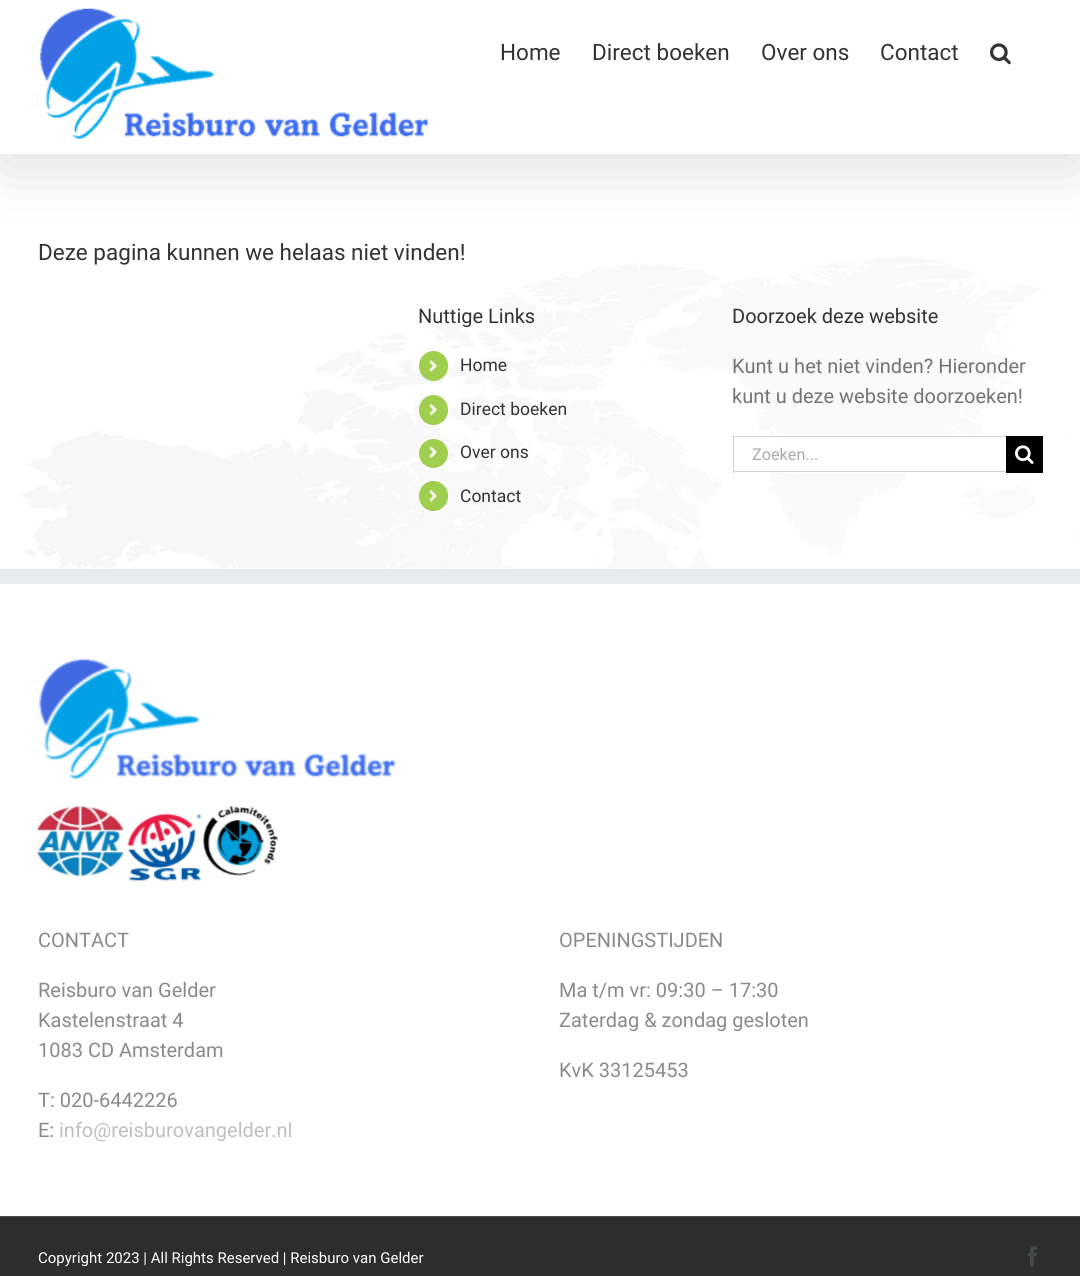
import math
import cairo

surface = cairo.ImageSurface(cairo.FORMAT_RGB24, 1080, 1276)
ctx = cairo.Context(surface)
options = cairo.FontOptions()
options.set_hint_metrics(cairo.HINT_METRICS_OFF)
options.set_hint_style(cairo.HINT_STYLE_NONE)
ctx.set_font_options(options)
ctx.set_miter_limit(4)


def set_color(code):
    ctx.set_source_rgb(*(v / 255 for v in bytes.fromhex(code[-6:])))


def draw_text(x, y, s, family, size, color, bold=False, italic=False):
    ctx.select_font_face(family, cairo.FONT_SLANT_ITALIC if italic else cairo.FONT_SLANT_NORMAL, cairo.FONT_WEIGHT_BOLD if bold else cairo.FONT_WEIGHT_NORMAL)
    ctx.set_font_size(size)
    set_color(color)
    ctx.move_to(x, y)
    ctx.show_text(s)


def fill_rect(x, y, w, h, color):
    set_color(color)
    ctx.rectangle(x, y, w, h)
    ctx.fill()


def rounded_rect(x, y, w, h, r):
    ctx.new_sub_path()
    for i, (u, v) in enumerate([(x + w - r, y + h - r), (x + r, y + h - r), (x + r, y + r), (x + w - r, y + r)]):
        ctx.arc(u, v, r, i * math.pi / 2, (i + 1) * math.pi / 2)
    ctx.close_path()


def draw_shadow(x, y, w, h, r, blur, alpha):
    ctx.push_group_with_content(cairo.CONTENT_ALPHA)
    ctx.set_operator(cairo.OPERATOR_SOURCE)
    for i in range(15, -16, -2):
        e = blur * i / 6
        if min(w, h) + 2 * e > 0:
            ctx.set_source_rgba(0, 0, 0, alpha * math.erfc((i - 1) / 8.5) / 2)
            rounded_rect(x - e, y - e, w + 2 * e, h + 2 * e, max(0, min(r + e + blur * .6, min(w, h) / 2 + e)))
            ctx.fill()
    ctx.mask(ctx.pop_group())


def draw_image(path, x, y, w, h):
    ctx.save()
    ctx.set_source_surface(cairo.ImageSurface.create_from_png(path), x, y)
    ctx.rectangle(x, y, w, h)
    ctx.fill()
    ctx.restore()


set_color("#ffffff")
ctx.paint()
draw_image("assets/img3.png", 21, 257, 1059, 312)
set_color("#000000")
draw_shadow(3, 15, 1075, 149, 0, 31, 0.14)
fill_rect(0, 0, 1080, 154, "#ffffff")
draw_image("assets/img1.png", 39, 8, 389, 131)
draw_text(500, 60, "Home", "Roboto", 22.5, "#333333")
draw_text(592, 60, "Direct boeken", "Roboto", 22.5, "#333333")
draw_text(761, 60, "Over ons", "Roboto", 22.5, "#333333")
draw_text(880, 60, "Contact", "Roboto", 22.5, "#333333")
draw_image("assets/img2.png", 990, 43, 21, 22)
draw_text(38, 260, "Deze pagina kunnen we helaas niet vinden!", "Roboto", 22.5, "#333333")
draw_text(418, 323, "Nuttige Links", "Roboto", 20, "#333333")
set_color("#a0ce4e")
rounded_rect(419, 351, 29, 30, 14.5)
ctx.fill()
draw_image("assets/img4.png", 429, 360, 8, 12)
draw_text(460, 371, "Home", "Roboto", 17.5, "#333333")
set_color("#a0ce4e")
rounded_rect(419, 395, 29, 30, 14.5)
ctx.fill()
draw_image("assets/img5.png", 429, 404, 8, 12)
draw_text(460, 415, "Direct boeken", "Roboto", 17.5, "#333333")
set_color("#a0ce4e")
ctx.new_path()
ctx.arc(433.5, 453.5, 14.5, 0, 2 * math.pi)
ctx.fill()
draw_image("assets/img6.png", 429, 446, 8, 12)
draw_text(460, 458, "Over ons", "Roboto", 17.5, "#333333")
set_color("#a0ce4e")
rounded_rect(419, 481, 29, 30, 14.5)
ctx.fill()
draw_image("assets/img4.png", 429, 490, 8, 12)
draw_text(460, 502, "Contact", "Roboto", 17.5, "#333333")
draw_text(732, 323, "Doorzoek deze website", "Roboto", 20, "#333333")
draw_text(732, 373, "Kunt u het niet vinden? Hieronder", "Roboto", 20, "#747474")
draw_text(732, 403, "kunt u deze website doorzoeken!", "Roboto", 20, "#747474")
fill_rect(763, 437, 220, 36, "#ffffff")
fill_rect(733, 436, 273, 1, "#d2d2d2")
fill_rect(733, 471, 273, 1, "#d2d2d2")
fill_rect(733, 436, 1, 37, "#d2d2d2")
draw_text(752, 460, "Zoeken...", "Roboto", 16.25, "#aaa9a9")
fill_rect(1006, 436, 37, 37, "#000000")
draw_image("assets/img7.png", 1015, 445, 19, 19)
fill_rect(0, 569, 1080, 15, "#e9eaee")
draw_image("assets/img8.png", 38, 658, 358, 122)
draw_image("assets/img9.png", 37, 806, 88, 71)
draw_image("assets/img10.png", 127, 813, 75, 69)
draw_image("assets/img11.png", 203, 806, 75, 70)
draw_text(38, 947, "CONTACT", "Roboto", 20, "#8c8989")
draw_text(38, 997, "Reisburo van Gelder", "Roboto", 20, "#8c8989")
draw_text(38, 1027, "Kastelenstraat 4", "Roboto", 20, "#8c8989")
draw_text(38, 1057, "1083 CD Amsterdam", "Roboto", 20, "#8c8989")
draw_text(38, 1107, "T: 020-6442226", "Roboto", 20, "#8c8989")
draw_text(38, 1137, "E:", "Roboto", 20, "#8c8989")
draw_text(59, 1137, "info@reisburovangelder.nl", "Roboto", 20, "#bfbfbf")
draw_text(559, 947, "OPENINGSTIJDEN", "Roboto", 20, "#8c8989")
draw_text(559, 997, "Ma t/m vr: 09:30 – 17:30", "Roboto", 20, "#8c8989")
draw_text(559, 1027, "Zaterdag & zondag gesloten", "Roboto", 20, "#8c8989")
draw_text(559, 1077, "KvK 33125453", "Roboto", 20, "#8c8989")
fill_rect(0, 1217, 1080, 59, "#2d2d2d")
fill_rect(0, 1216, 1080, 1, "#4b4c4d")
draw_text(38, 1263, "Copyright 2023 | All Rights Reserved | Reisburo van Gelder", "Roboto", 15, "#ffffff")
draw_image("assets/img12.png", 1027, 1246, 10, 21)
surface.write_to_png("output.png")
